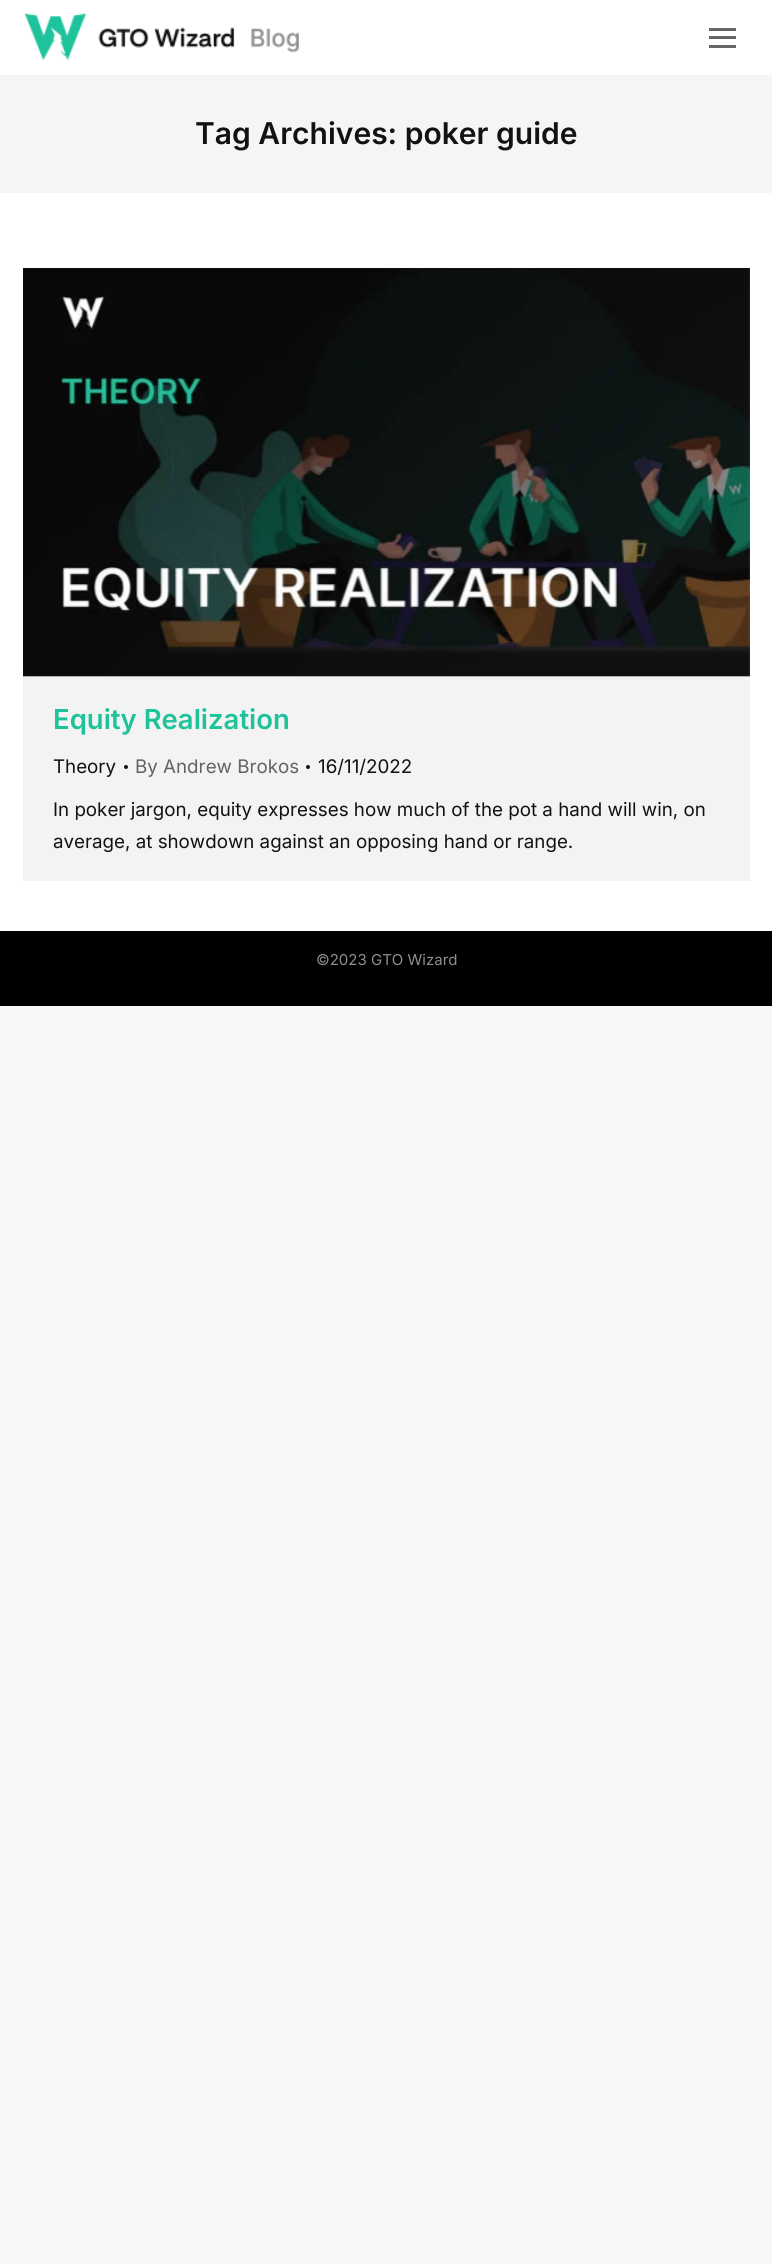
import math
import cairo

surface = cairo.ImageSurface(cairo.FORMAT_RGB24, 772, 2264)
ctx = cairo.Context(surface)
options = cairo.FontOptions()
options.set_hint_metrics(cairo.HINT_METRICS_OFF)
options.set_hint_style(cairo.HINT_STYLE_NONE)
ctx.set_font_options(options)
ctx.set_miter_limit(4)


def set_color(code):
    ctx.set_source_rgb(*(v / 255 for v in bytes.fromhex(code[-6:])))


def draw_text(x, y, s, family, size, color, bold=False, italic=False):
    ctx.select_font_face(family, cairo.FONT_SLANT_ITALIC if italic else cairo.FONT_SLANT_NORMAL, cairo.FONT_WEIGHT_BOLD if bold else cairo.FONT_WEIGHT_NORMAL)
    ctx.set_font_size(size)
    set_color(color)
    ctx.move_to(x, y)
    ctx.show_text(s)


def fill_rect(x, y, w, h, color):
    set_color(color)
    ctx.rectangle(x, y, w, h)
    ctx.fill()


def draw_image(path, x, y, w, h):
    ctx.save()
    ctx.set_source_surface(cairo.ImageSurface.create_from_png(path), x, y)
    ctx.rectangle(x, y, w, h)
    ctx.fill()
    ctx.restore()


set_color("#f7f7f7")
ctx.paint()
fill_rect(0, 0, 772, 931, "#ffffff")
draw_image("assets/img1.png", 25, 13, 274, 48)
fill_rect(709, 28, 27, 3, "#666666")
fill_rect(709, 36, 27, 3, "#666666")
fill_rect(709, 45, 27, 3, "#666666")
fill_rect(0, 75, 772, 118, "#f5f5f5")
draw_text(195, 144, "Tag Archives: poker guide", "Inter SemiBold", 30, "#121212")
fill_rect(23, 268, 727, 613, "#f3f3f3")
draw_image("assets/img2.png", 23, 268, 727, 409)
draw_text(53, 729, "Equity Realization", "Inter SemiBold", 27.5, "#1ec39c")
draw_text(53, 773, "Theory", "Inter", 18.75, "#121212")
ctx.new_path()
ctx.arc(126, 767, 2, 0, 2 * math.pi)
ctx.fill()
draw_text(135, 773, "By Andrew Brokos", "Inter", 18.75, "#636363")
set_color("#121212")
ctx.new_path()
ctx.arc(308, 767, 2, 0, 2 * math.pi)
ctx.fill()
draw_text(318, 773, "16/11/2022", "Inter", 18.75, "#121212")
draw_text(53, 816, "In poker jargon, equity expresses how much of the pot a hand will win, on", "Inter", 18.75, "#121212")
draw_text(53, 848, "average, at showdown against an opposing hand or range.", "Inter", 18.75, "#121212")
fill_rect(0, 931, 772, 75, "#000000")
draw_text(316, 965, "©2023 GTO Wizard", "Inter", 15, "#8e8e8e")
surface.write_to_png("output.png")
